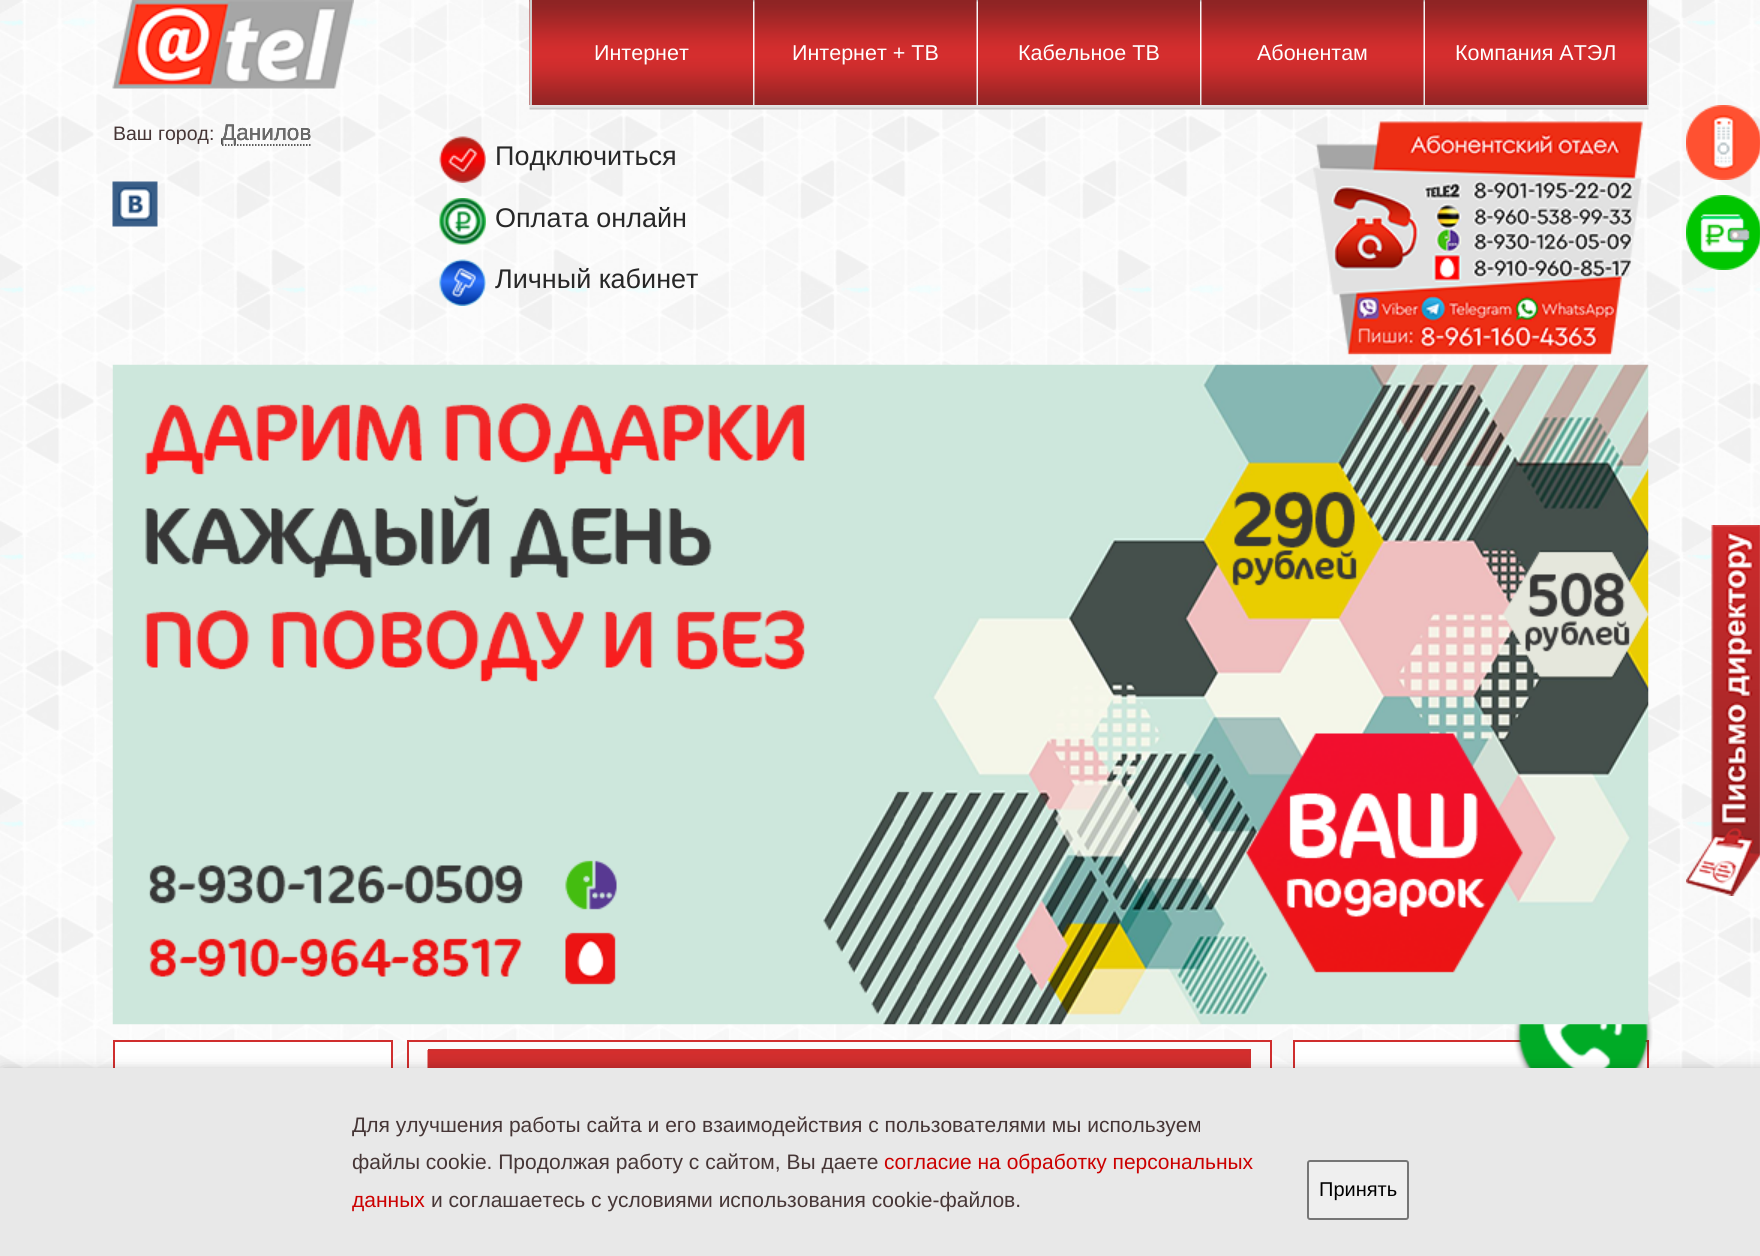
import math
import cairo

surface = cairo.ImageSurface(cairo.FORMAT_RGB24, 1760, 1256)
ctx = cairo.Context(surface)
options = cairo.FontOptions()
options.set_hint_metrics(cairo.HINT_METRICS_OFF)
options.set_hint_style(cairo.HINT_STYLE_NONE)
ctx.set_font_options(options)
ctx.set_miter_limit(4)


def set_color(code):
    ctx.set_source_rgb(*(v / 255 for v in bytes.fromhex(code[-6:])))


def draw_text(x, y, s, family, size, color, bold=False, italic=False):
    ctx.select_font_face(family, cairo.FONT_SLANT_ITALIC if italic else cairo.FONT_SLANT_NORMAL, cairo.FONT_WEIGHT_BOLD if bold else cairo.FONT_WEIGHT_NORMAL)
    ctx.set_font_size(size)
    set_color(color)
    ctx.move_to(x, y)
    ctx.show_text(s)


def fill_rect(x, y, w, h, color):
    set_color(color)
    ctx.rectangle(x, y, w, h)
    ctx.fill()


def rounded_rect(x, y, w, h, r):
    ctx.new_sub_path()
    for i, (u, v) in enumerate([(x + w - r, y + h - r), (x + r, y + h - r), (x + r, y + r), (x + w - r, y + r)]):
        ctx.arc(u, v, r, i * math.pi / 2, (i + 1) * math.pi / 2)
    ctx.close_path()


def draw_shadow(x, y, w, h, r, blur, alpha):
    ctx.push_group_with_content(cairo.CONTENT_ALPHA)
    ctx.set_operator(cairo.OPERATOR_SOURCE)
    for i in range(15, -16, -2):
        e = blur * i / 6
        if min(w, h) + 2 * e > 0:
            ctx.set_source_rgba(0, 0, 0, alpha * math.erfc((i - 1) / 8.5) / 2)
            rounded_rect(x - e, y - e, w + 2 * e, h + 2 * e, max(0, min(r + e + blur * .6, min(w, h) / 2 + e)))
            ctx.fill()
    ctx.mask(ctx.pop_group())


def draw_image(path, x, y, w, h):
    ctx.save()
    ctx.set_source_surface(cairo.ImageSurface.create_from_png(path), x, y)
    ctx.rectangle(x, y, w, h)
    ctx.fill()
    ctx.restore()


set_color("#ffffff")
ctx.paint()
draw_image("assets/img1.png", 0, 0, 1760, 1068)
draw_image("assets/img2.png", 112, 0, 242, 89)
draw_text(113, 140, "Ваш город:", "Liberation Sans", 19.5, "#463636")
ctx.new_path()
ctx.move_to(222, 145)
ctx.line_to(312, 145)
set_color("#282828")
ctx.set_line_width(1.5)
ctx.set_dash([1.5, 1.5])
ctx.stroke()
draw_text(221, 140, "Данилов", "Liberation Sans", 22.5, "#282828")
ctx.save()
ctx.rectangle(222, 117, 116, 29)
ctx.clip()
draw_text(221, 140, "Данилов", "Liberation Sans", 22.5, "#6b6b6b")
ctx.restore()
draw_image("assets/img3.png", 112, 181, 46, 46)
draw_image("assets/img4.png", 529, 0, 1120, 110)
draw_image("assets/img5.png", 529, 0, 224, 105)
fill_rect(530, 0, 2, 105, "#cccccc")
draw_text(594, 60, "Интернет", "Liberation Sans", 21.5, "#ffffff")
draw_image("assets/img6.png", 754, 0, 223, 105)
draw_text(792, 60, "Интернет + ТВ", "Liberation Sans", 21.5, "#ffffff")
draw_image("assets/img7.png", 978, 0, 222, 105)
draw_text(1018, 60, "Кабельное ТВ", "Liberation Sans", 21.5, "#ffffff")
draw_image("assets/img6.png", 1201, 0, 223, 105)
draw_text(1257, 60, "Абонентам", "Liberation Sans", 21.5, "#ffffff")
draw_image("assets/img7.png", 1425, 0, 222, 105)
fill_rect(1647, 0, 2, 105, "#cccccc")
draw_text(1455, 60, "Компания АТЭЛ", "Liberation Sans", 21.5, "#ffffff")
draw_image("assets/img8.png", 439, 136, 47, 47)
draw_text(495, 165, "Подключиться", "Liberation Sans", 27, "#282828")
draw_image("assets/img9.png", 439, 198, 47, 47)
draw_text(495, 227, "Оплата онлайн", "Liberation Sans", 27, "#282828")
draw_image("assets/img10.png", 439, 259, 47, 47)
draw_text(495, 288, "Личный кабинет", "Liberation Sans", 27, "#282828")
draw_image("assets/img11.png", 1313, 121, 330, 234)
fill_rect(1295, 1042, 352, 26, "#ffffff")
ctx.rectangle(1294, 1041, 354, 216)
set_color("#d02e2e")
ctx.set_line_width(2)
ctx.set_dash([])
ctx.stroke()
draw_image("assets/img17.png", 1514, 1011, 139, 57)
draw_image("assets/img12.png", 112, 364, 1537, 661)
fill_rect(115, 1042, 276, 26, "#ffffff")
ctx.rectangle(114, 1041, 278, 55)
set_color("#d02e2e")
ctx.stroke()
fill_rect(409, 1042, 861, 26, "#fbfafa")
ctx.rectangle(408, 1041, 863, 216)
set_color("#d02e2e")
ctx.stroke()
draw_image("assets/img13.png", 427, 1050, 822, 18)
ctx.rectangle(429, 1050, 821, 73)
ctx.stroke()
set_color("#000000")
draw_shadow(3, 1073, 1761, 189, 0, 7.5, 0.4)
fill_rect(0, 1068, 1760, 188, "#e8e8e8")
draw_text(352, 1132, "Для улучшения работы сайта и его взаимодействия с пользователями мы используем", "Liberation Sans", 21, "#463636")
draw_text(352, 1169, "файлы cookie. Продолжая работу с сайтом, Вы даете", "Liberation Sans", 21, "#463636")
draw_text(884, 1169, "согласие на обработку персональных", "Liberation Sans", 21, "#cc0000")
draw_text(352, 1207, "данных", "Liberation Sans", 21, "#cc0000")
draw_text(431, 1207, "и соглашаетесь с условиями использования cookie-файлов.", "Liberation Sans", 21, "#463636")
set_color("#efefef")
rounded_rect(1308, 1161, 100, 58, 2)
ctx.fill_preserve()
set_color("#767676")
ctx.stroke()
draw_text(1319, 1196, "Принять", "Liberation Sans", 20, "#000000")
draw_image("assets/img14.png", 1686, 105, 74, 75)
draw_image("assets/img15.png", 1686, 195, 74, 75)
draw_image("assets/img16.png", 1686, 525, 74, 371)
surface.write_to_png("output.png")
